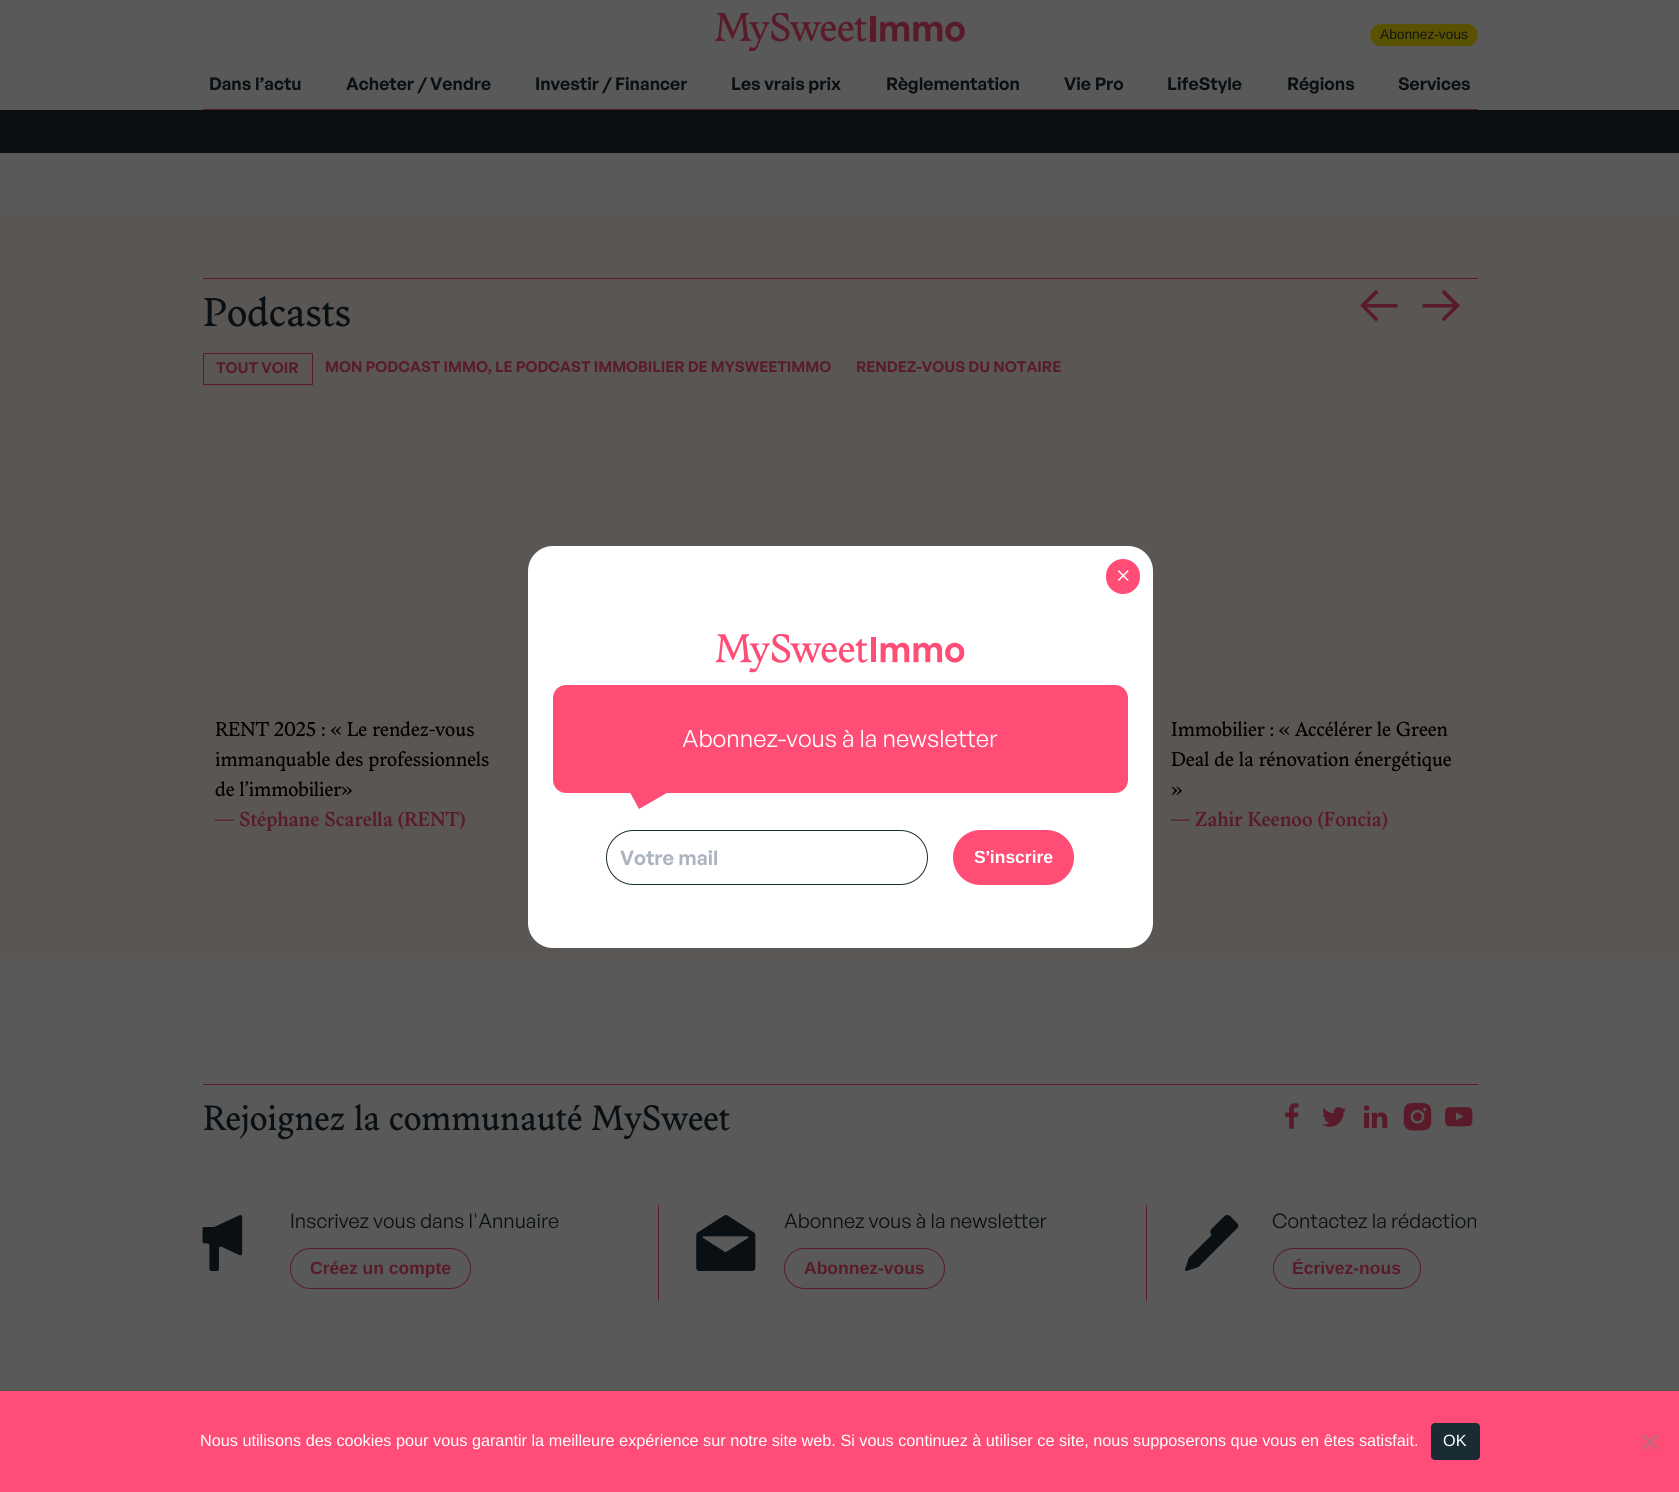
import math
import cairo

surface = cairo.ImageSurface(cairo.FORMAT_RGB24, 1679, 1492)
ctx = cairo.Context(surface)
options = cairo.FontOptions()
options.set_hint_metrics(cairo.HINT_METRICS_OFF)
options.set_hint_style(cairo.HINT_STYLE_NONE)
ctx.set_font_options(options)
ctx.set_miter_limit(4)


def set_color(code):
    ctx.set_source_rgb(*(v / 255 for v in bytes.fromhex(code[-6:])))


def draw_text(x, y, s, family, size, color, bold=False, italic=False):
    ctx.select_font_face(family, cairo.FONT_SLANT_ITALIC if italic else cairo.FONT_SLANT_NORMAL, cairo.FONT_WEIGHT_BOLD if bold else cairo.FONT_WEIGHT_NORMAL)
    ctx.set_font_size(size)
    set_color(color)
    ctx.move_to(x, y)
    ctx.show_text(s)


def fill_rect(x, y, w, h, color):
    set_color(color)
    ctx.rectangle(x, y, w, h)
    ctx.fill()


def rounded_rect(x, y, w, h, r):
    ctx.new_sub_path()
    for i, (u, v) in enumerate([(x + w - r, y + h - r), (x + r, y + h - r), (x + r, y + r), (x + w - r, y + r)]):
        ctx.arc(u, v, r, i * math.pi / 2, (i + 1) * math.pi / 2)
    ctx.close_path()


def draw_image(path, x, y, w, h):
    ctx.save()
    ctx.set_source_surface(cairo.ImageSurface.create_from_png(path), x, y)
    ctx.rectangle(x, y, w, h)
    ctx.fill()
    ctx.restore()


set_color("#595959")
ctx.paint()
draw_image("assets/img1.png", 715, 13, 250, 38)
set_color("#595200")
rounded_rect(1370, 24, 108, 22, 11)
ctx.fill()
draw_text(1380, 39, "Abonnez-vous", "Liberation Sans", 13.75, "#131313")
fill_rect(203, 109, 1275, 1, "#591b29")
draw_text(209, 90, "Dans l’actu", "General Sans SemiBold", 17.5, "#090f12")
draw_text(346, 90, "Acheter / Vendre", "General Sans SemiBold", 17.5, "#090f12")
draw_text(535, 90, "Investir / Financer", "General Sans SemiBold", 17.5, "#090f12")
draw_text(731, 90, "Les vrais prix", "General Sans SemiBold", 17.5, "#090f12")
draw_text(886, 90, "Règlementation", "General Sans SemiBold", 17.5, "#090f12")
draw_text(1064, 90, "Vie Pro", "General Sans SemiBold", 17.5, "#090f12")
draw_text(1167, 90, "LifeStyle", "General Sans SemiBold", 17.5, "#090f12")
draw_text(1287, 90, "Régions", "General Sans SemiBold", 17.5, "#090f12")
draw_text(1398, 90, "Services", "General Sans SemiBold", 17.5, "#090f12")
fill_rect(0, 110, 1679, 43, "#090f12")
fill_rect(0, 215, 1679, 744, "#595653")
fill_rect(203, 278, 1275, 1, "#591b29")
draw_text(203, 326, "Podcasts", "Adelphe", 40, "#090f12")
ctx.rectangle(203.5, 353.5, 109, 31)
set_color("#591b29")
ctx.set_line_width(1)
ctx.stroke()
draw_text(216, 373, "TOUT VOIR", "General Sans SemiBold", 15, "#591b29")
draw_text(325, 372, "MON PODCAST IMMO, LE PODCAST IMMOBILIER DE MYSWEETIMMO", "General Sans SemiBold", 15, "#591b29")
draw_text(856, 372, "RENDEZ-VOUS DU NOTAIRE", "General Sans SemiBold", 15, "#591b29")
ctx.new_path()
ctx.move_to(1367, 304)
ctx.line_to(1378.5, 292.5)
ctx.line_to(1376, 289.5)
ctx.line_to(1360, 305.5)
ctx.line_to(1376, 321.5)
ctx.line_to(1378.5, 319)
ctx.line_to(1367, 307.5)
ctx.line_to(1397.5, 307.5)
ctx.line_to(1397.5, 304)
ctx.close_path()
ctx.fill()
ctx.new_path()
ctx.move_to(1453, 304)
ctx.line_to(1441.5, 292.5)
ctx.line_to(1444, 289.5)
ctx.line_to(1460, 305.5)
ctx.line_to(1444, 321.5)
ctx.line_to(1441.5, 319)
ctx.line_to(1453, 307.5)
ctx.line_to(1422.5, 307.5)
ctx.line_to(1422.5, 304)
ctx.close_path()
ctx.fill()
draw_text(215, 736, "RENT 2025 : « Le rendez-vous", "Adelphe", 20, "#000000")
draw_text(215, 766, "immanquable des professionnels", "Adelphe", 20, "#000000")
draw_text(215, 796, "de l’immobilier»", "Adelphe", 20, "#000000")
draw_text(215, 826, "— Stéphane Scarella (RENT)", "Adelphe SemiBold", 20, "#591b29")
draw_text(1171, 736, "Immobilier : « Accélérer le Green", "Adelphe", 20, "#000000")
draw_text(1171, 766, "Deal de la rénovation énergétique", "Adelphe", 20, "#000000")
draw_text(1171, 796, "»", "Adelphe", 20, "#000000")
draw_text(1171, 826, "— Zahir Keenoo (Foncia)", "Adelphe SemiBold", 20, "#591b29")
fill_rect(203, 1084, 1275, 1, "#591b29")
draw_text(203, 1130, "Rejoignez la communauté MySweet", "Adelphe", 35, "#090f12")
draw_image("assets/img2.png", 1285, 1103, 14, 26)
draw_image("assets/img3.png", 1322, 1107, 24, 20)
draw_image("assets/img4.png", 1363, 1105, 25, 23)
draw_image("assets/img5.png", 1403, 1103, 29, 28)
draw_image("assets/img6.png", 1445, 1107, 28, 20)
draw_image("assets/img7.png", 202, 1215, 41, 56)
draw_text(290, 1228, "Inscrivez vous dans l'Annuaire", "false", 20, "#090f12")
rounded_rect(290.5, 1248.5, 180, 40, 20)
set_color("#591b29")
ctx.stroke()
draw_text(310, 1274, "Créez un compte", "Liberation Sans", 17.5, "#591b29", bold=True)
fill_rect(658, 1205, 1, 96, "#591b29")
draw_image("assets/img8.png", 696, 1215, 60, 56)
draw_text(784, 1228, "Abonnez vous à la newsletter", "false", 20, "#090f12")
rounded_rect(784.5, 1248.5, 160, 40, 20)
set_color("#591b29")
ctx.stroke()
draw_text(804, 1274, "Abonnez-vous", "Liberation Sans", 17.5, "#591b29", bold=True)
fill_rect(1146, 1205, 1, 96, "#591b29")
draw_image("assets/img9.png", 1185, 1215, 54, 56)
draw_text(1272, 1228, "Contactez la rédaction", "false", 20, "#090f12")
rounded_rect(1273.5, 1248.5, 147, 40, 20)
set_color("#591b29")
ctx.stroke()
draw_text(1292, 1274, "Écrivez-nous", "Liberation Sans", 17.5, "#591b29", bold=True)
set_color("#ffffff")
rounded_rect(528, 546, 625, 402, 25)
ctx.fill()
set_color("#ff4d76")
rounded_rect(1106, 559, 34, 35, 17)
ctx.fill()
draw_text(1115, 584, "×", "false", 25, "#ffffff")
draw_image("assets/img10.png", 715, 634, 250, 39)
set_color("#ff4d76")
rounded_rect(553, 685, 575, 108, 13)
ctx.fill()
draw_text(682, 747, "Abonnez-vous à la newsletter", "false", 23.75, "#ffffff")
set_color("#ff4d76")
ctx.new_path()
ctx.move_to(653, 758)
ctx.line_to(672, 790)
ctx.line_to(639, 809)
ctx.line_to(621, 776)
ctx.close_path()
ctx.fill()
rounded_rect(606.5, 830.5, 321, 54, 27)
set_color("#1a2c33")
ctx.stroke()
draw_text(620, 865, "Votre mail", "General Sans SemiBold", 20, "#acb3c2")
set_color("#ff4d76")
rounded_rect(953, 830, 121, 55, 27.5)
ctx.fill()
draw_text(974, 863, "S'inscrire", "Liberation Sans", 17.5, "#ffffff", bold=True)
fill_rect(0, 1391, 1679, 101, "#ff4d77")
draw_text(200, 1446, "Nous utilisons des cookies pour vous garantir la meilleure expérience sur notre site web. Si vous continuez à utiliser ce site, nous supposerons que vous en êtes satisfait.", "Liberation Sans", 16.25, "#ffffff")
set_color("#1a2c33")
rounded_rect(1431, 1423, 49, 37, 4)
ctx.fill()
draw_text(1443, 1446, "OK", "Liberation Sans", 16.25, "#ffffff")
set_color("#c0677c")
ctx.new_path()
ctx.move_to(1655.5, 1434.5)
ctx.line_to(1657.5, 1436.5)
ctx.line_to(1644.5, 1449.5)
ctx.line_to(1642.5, 1448)
ctx.close_path()
ctx.fill()
ctx.new_path()
ctx.move_to(1642.5, 1436.5)
ctx.line_to(1644.5, 1434.5)
ctx.line_to(1657.5, 1448)
ctx.line_to(1655.5, 1449.5)
ctx.close_path()
ctx.fill()
surface.write_to_png("output.png")
